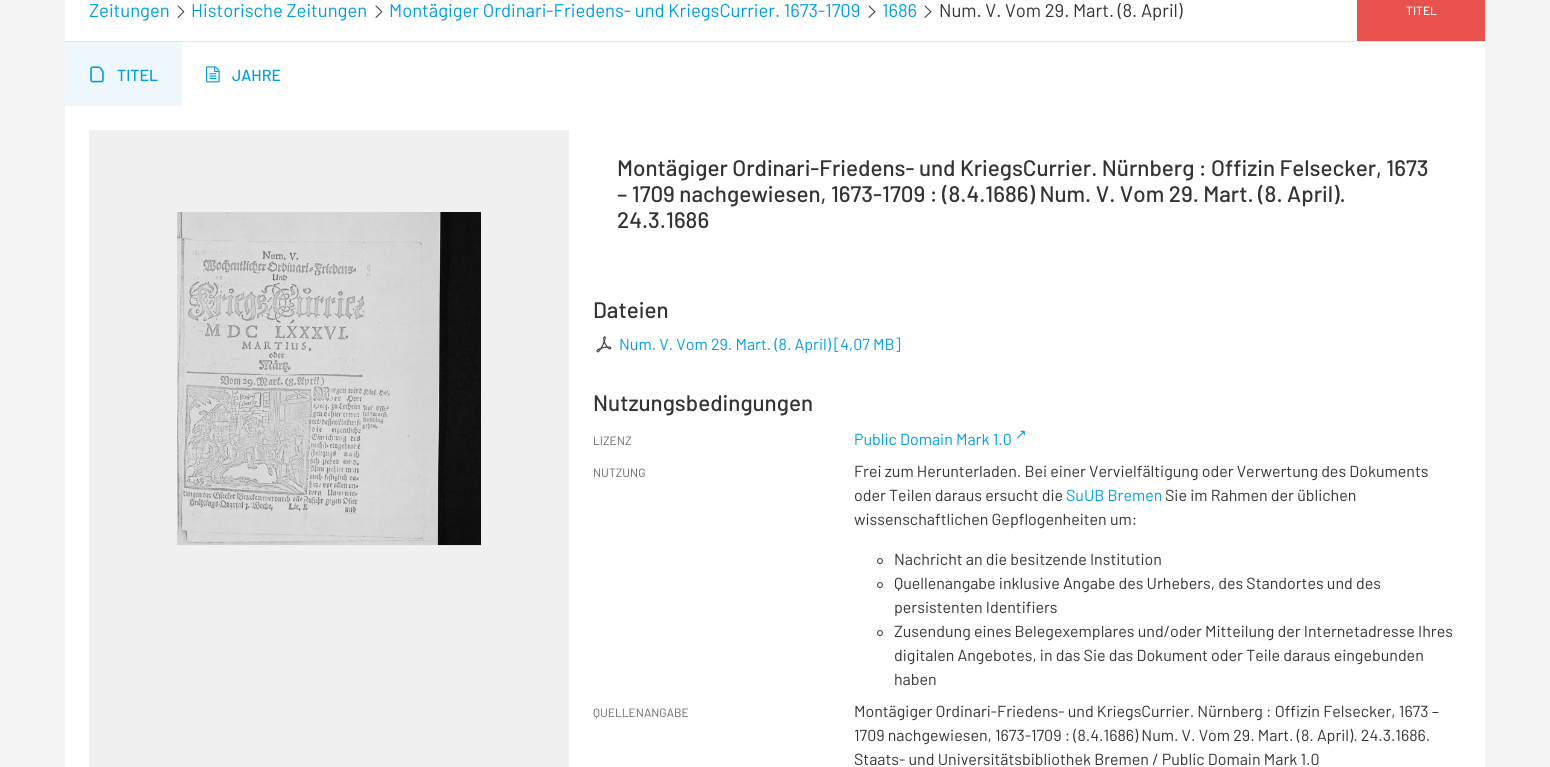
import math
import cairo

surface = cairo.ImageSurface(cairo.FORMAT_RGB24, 1550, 767)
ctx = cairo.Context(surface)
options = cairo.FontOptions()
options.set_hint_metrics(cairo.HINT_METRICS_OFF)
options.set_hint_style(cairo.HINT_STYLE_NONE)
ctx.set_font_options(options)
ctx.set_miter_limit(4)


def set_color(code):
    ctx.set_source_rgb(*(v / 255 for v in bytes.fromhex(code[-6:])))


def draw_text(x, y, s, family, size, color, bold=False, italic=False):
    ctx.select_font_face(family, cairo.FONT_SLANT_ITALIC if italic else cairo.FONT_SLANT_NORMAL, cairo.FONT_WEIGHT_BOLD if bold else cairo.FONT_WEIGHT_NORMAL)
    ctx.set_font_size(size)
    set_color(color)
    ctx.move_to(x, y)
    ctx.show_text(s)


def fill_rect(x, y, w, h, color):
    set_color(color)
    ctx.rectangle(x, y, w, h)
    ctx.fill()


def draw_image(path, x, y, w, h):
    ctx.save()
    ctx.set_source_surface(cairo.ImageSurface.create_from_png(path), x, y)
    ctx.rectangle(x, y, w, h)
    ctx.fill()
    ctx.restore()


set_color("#f4f4f4")
ctx.paint()
fill_rect(65, 0, 1420, 767, "#ffffff")
fill_rect(65, 41, 1420, 1, "#e4e4e4")
draw_text(89, 17, "Zeitungen", "Barlow", 18.4, "#009de0")
draw_image("assets/img1.png", 177, 5, 8, 13)
draw_text(191, 17, "Historische Zeitungen", "Barlow", 18.4, "#009de0")
draw_image("assets/img1.png", 375, 5, 8, 13)
draw_text(389, 17, "Montägiger Ordinari-Friedens- und KriegsCurrier. 1673-1709", "Barlow", 18.4, "#009de0")
draw_image("assets/img1.png", 868, 5, 8, 13)
draw_text(882, 17, "1686", "Barlow", 18.4, "#009de0")
draw_image("assets/img1.png", 924, 5, 8, 13)
draw_text(939, 17, "Num. V. Vom 29. Mart. (8. April)", "Barlow", 18.4, "#333333")
fill_rect(1357, 0, 128, 41, "#e9524c")
draw_text(1406, 15, "TITEL", "Barlow Medium", 12, "#ffffff")
fill_rect(65, 42, 117, 64, "#eef8fc")
draw_image("assets/img2.png", 90, 66, 14, 17)
draw_text(117, 81, "TITEL", "Barlow Medium", 16, "#009de0")
draw_image("assets/img3.png", 206, 66, 14, 17)
draw_text(232, 81, "JAHRE", "Barlow Medium", 16, "#009de0")
fill_rect(89, 130, 480, 637, "#f0f0f0")
draw_image("assets/img4.png", 177, 212, 304, 334)
draw_text(617, 176, "Montägiger Ordinari-Friedens- und KriegsCurrier. Nürnberg : Offizin Felsecker, 1673", "Barlow Medium", 22.4, "#333333")
draw_text(617, 202, "– 1709 nachgewiesen, 1673-1709 : (8.4.1686) Num. V. Vom 29. Mart. (8. April).", "Barlow Medium", 22.4, "#333333")
draw_text(617, 228, "24.3.1686", "Barlow Medium", 22.4, "#333333")
draw_text(593, 318, "Dateien", "Barlow Medium", 22.4, "#333333")
draw_image("assets/img5.png", 596, 336, 16, 17)
draw_text(619, 350, "Num. V. Vom 29. Mart. (8. April) [4,07 MB]", "Barlow", 16, "#009de0")
draw_text(593, 411, "Nutzungsbedingungen", "Barlow Medium", 22.4, "#333333")
draw_text(593, 445, "LIZENZ", "Barlow", 12, "#666666")
draw_text(854, 445, "Public Domain Mark 1.0", "Barlow", 16, "#009de0")
draw_text(1015, 439, "↗", "DejaVu Sans", 14, "#009de0")
draw_text(593, 477, "NUTZUNG", "Barlow", 12, "#666666")
draw_text(854, 477, "Frei zum Herunterladen. Bei einer Vervielfältigung oder Verwertung des Dokuments", "Barlow", 16, "#333333")
draw_text(854, 501, "oder Teilen daraus ersucht die", "Barlow", 16, "#333333")
draw_text(1066, 501, "SuUB Bremen", "Barlow", 16, "#009de0")
draw_text(1165, 501, "Sie im Rahmen der üblichen", "Barlow", 16, "#333333")
draw_text(854, 525, "wissenschaftlichen Gepflogenheiten um:", "Barlow", 16, "#333333")
ctx.new_path()
ctx.arc(880, 561, 2.5, 0, 2 * math.pi)
ctx.set_line_width(1)
ctx.stroke()
draw_text(894, 565, "Nachricht an die besitzende Institution", "Barlow", 16, "#333333")
ctx.new_path()
ctx.arc(880, 585, 2.5, 0, 2 * math.pi)
ctx.stroke()
draw_text(894, 589, "Quellenangabe inklusive Angabe des Urhebers, des Standortes und des", "Barlow", 16, "#333333")
draw_text(894, 613, "persistenten Identifiers", "Barlow", 16, "#333333")
ctx.new_path()
ctx.arc(880, 633, 2.5, 0, 2 * math.pi)
ctx.stroke()
draw_text(894, 637, "Zusendung eines Belegexemplares und/oder Mitteilung der Internetadresse Ihres", "Barlow", 16, "#333333")
draw_text(894, 661, "digitalen Angebotes, in das Sie das Dokument oder Teile daraus eingebunden", "Barlow", 16, "#333333")
draw_text(894, 685, "haben", "Barlow", 16, "#333333")
draw_text(593, 717, "QUELLENANGABE", "Barlow", 12, "#666666")
draw_text(854, 717, "Montägiger Ordinari-Friedens- und KriegsCurrier. Nürnberg : Offizin Felsecker, 1673 –", "Barlow", 16, "#333333")
draw_text(854, 741, "1709 nachgewiesen, 1673-1709 : (8.4.1686) Num. V. Vom 29. Mart. (8. April). 24.3.1686.", "Barlow", 16, "#333333")
draw_text(854, 765, "Staats- und Universitätsbibliothek Bremen / Public Domain Mark 1.0", "Barlow", 16, "#333333")
surface.write_to_png("output.png")
